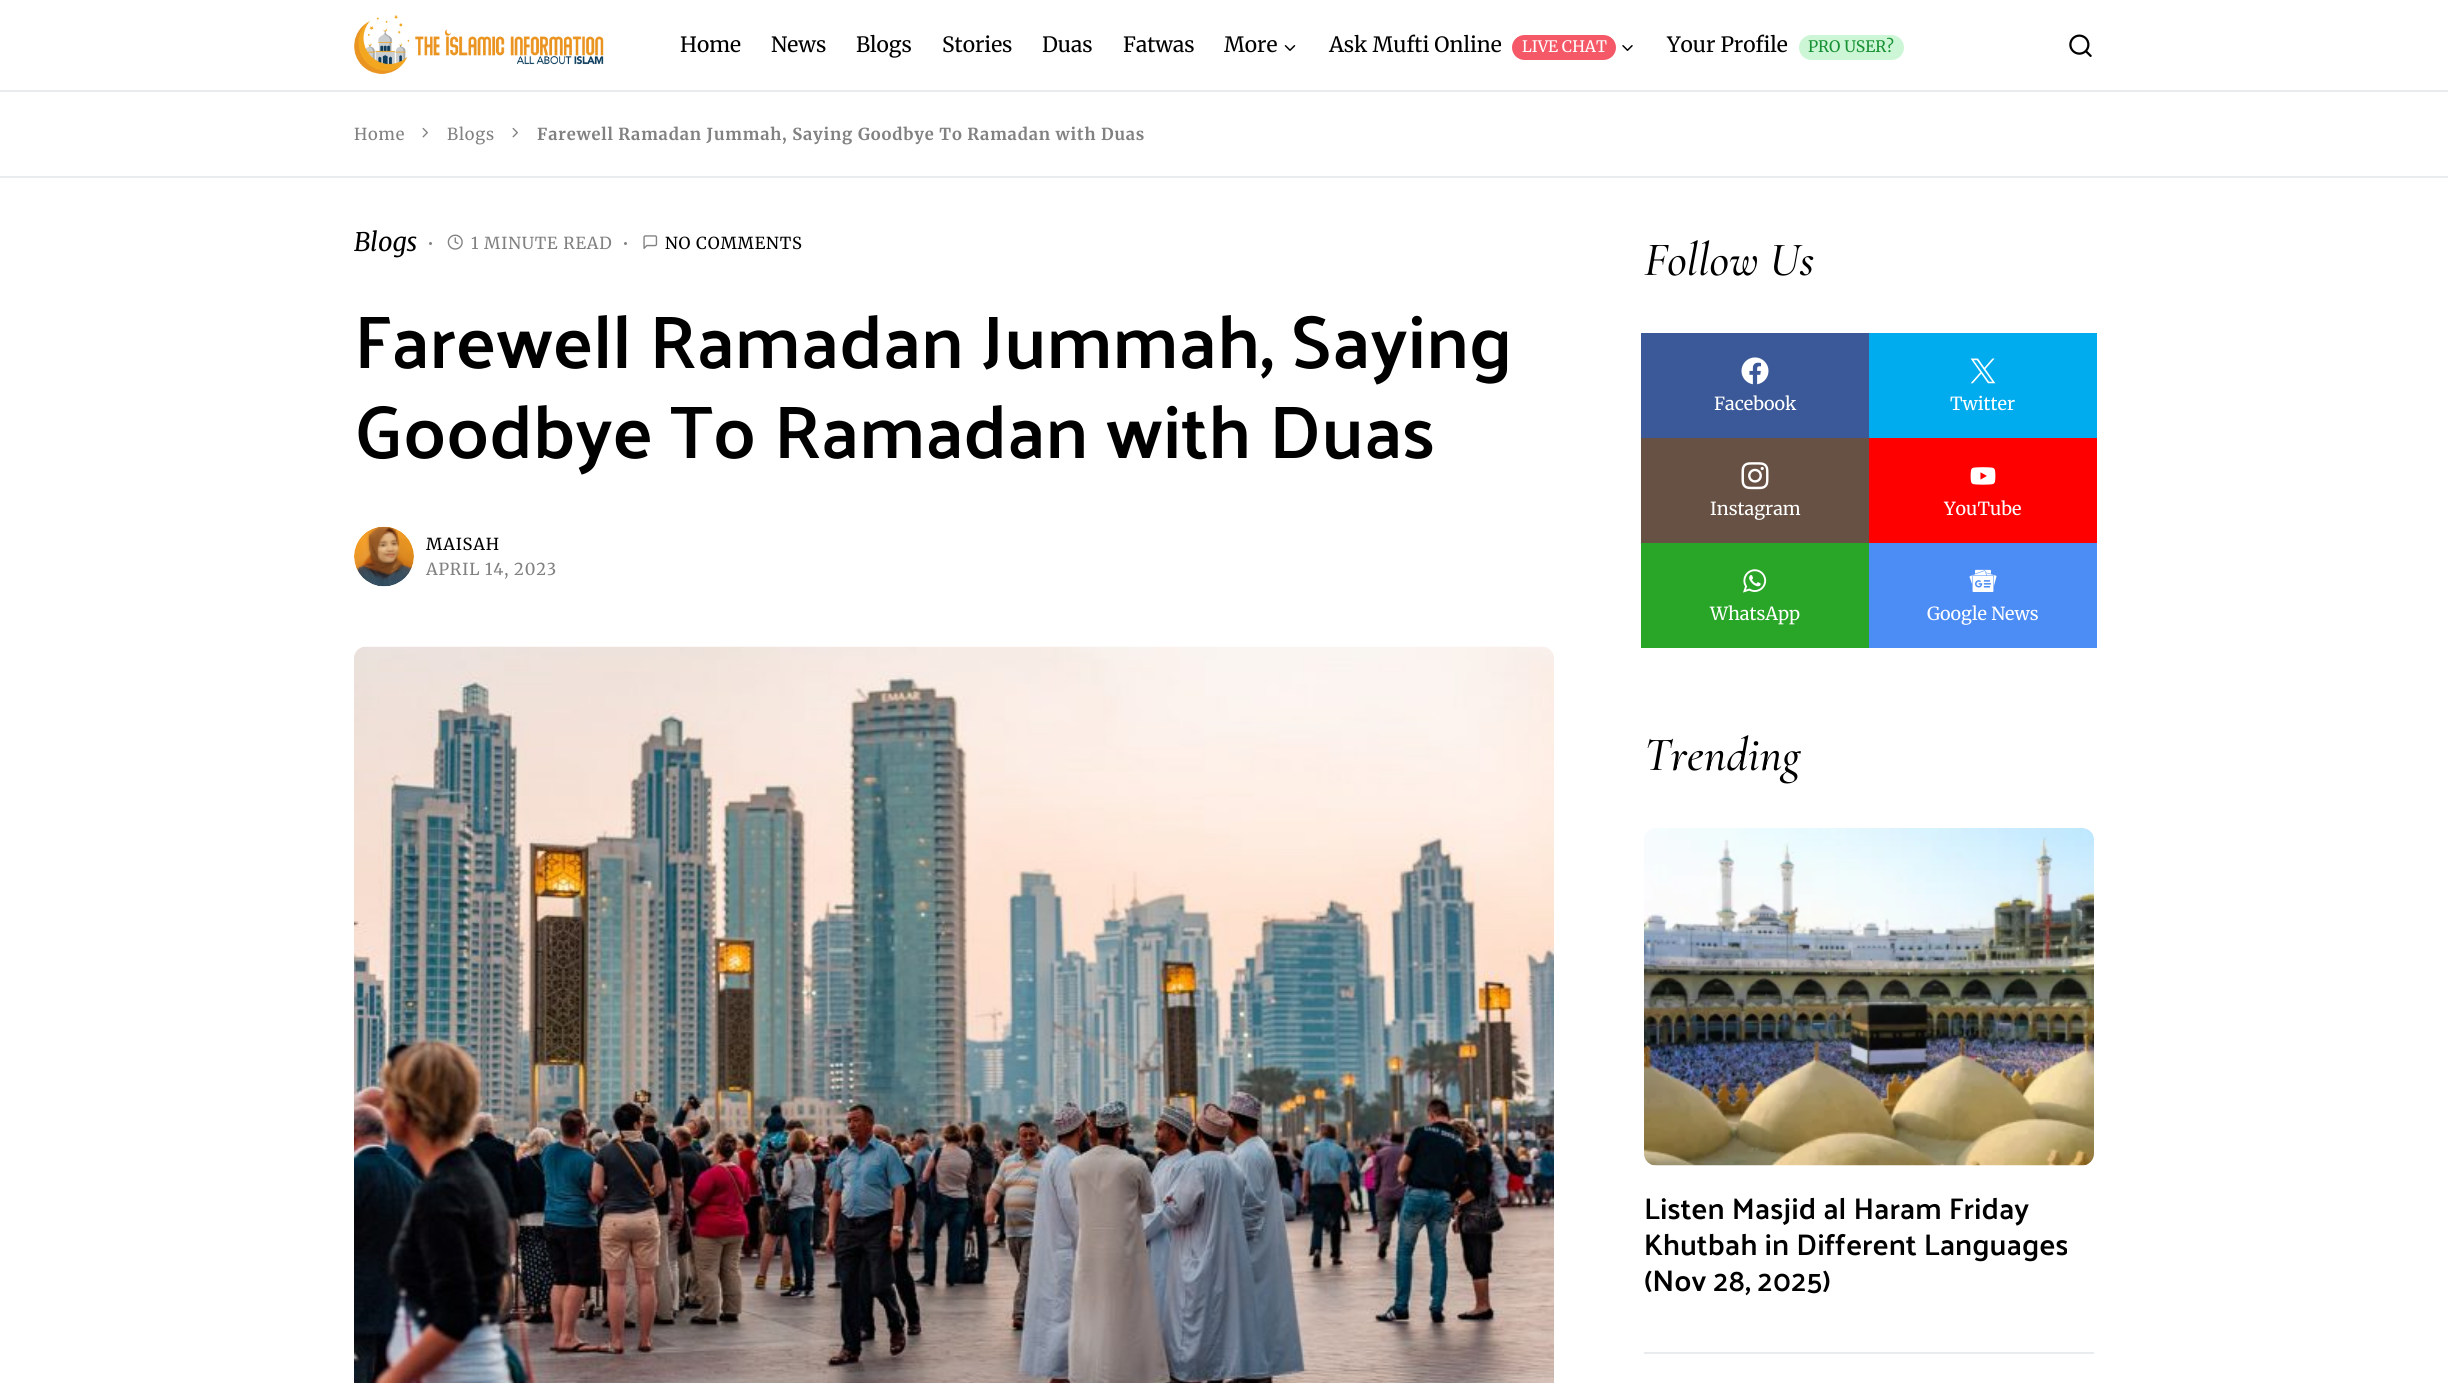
import math
import cairo

surface = cairo.ImageSurface(cairo.FORMAT_RGB24, 2448, 1383)
ctx = cairo.Context(surface)
options = cairo.FontOptions()
options.set_hint_metrics(cairo.HINT_METRICS_OFF)
options.set_hint_style(cairo.HINT_STYLE_NONE)
ctx.set_font_options(options)
ctx.set_miter_limit(4)


def set_color(code):
    ctx.set_source_rgb(*(v / 255 for v in bytes.fromhex(code[-6:])))


def draw_text(x, y, s, family, size, color, bold=False, italic=False):
    ctx.select_font_face(family, cairo.FONT_SLANT_ITALIC if italic else cairo.FONT_SLANT_NORMAL, cairo.FONT_WEIGHT_BOLD if bold else cairo.FONT_WEIGHT_NORMAL)
    ctx.set_font_size(size)
    set_color(color)
    ctx.move_to(x, y)
    ctx.show_text(s)


def draw_spaced(x, y, s, letter, word):
    ctx.move_to(x, y)
    for ch in s:
        ctx.show_text(ch)
        ctx.rel_move_to(letter + word * (ch == ' '), 0)


def fill_rect(x, y, w, h, color):
    set_color(color)
    ctx.rectangle(x, y, w, h)
    ctx.fill()


def rounded_rect(x, y, w, h, r):
    ctx.new_sub_path()
    for i, (u, v) in enumerate([(x + w - r, y + h - r), (x + r, y + h - r), (x + r, y + r), (x + w - r, y + r)]):
        ctx.arc(u, v, r, i * math.pi / 2, (i + 1) * math.pi / 2)
    ctx.close_path()


def draw_image(path, x, y, w, h):
    ctx.save()
    ctx.set_source_surface(cairo.ImageSurface.create_from_png(path), x, y)
    ctx.rectangle(x, y, w, h)
    ctx.fill()
    ctx.restore()


set_color("#ffffff")
ctx.paint()
fill_rect(0, 90, 2448, 2, "#e9ecef")
draw_image("assets/img1.png", 354, 15, 250, 60)
draw_text(680, 52, "Home", "Merriweather", 21, "#000000")
draw_text(771, 52, "News", "Merriweather", 21, "#000000")
draw_text(856, 52, "Blogs", "Merriweather", 21, "#000000")
draw_text(942, 52, "Stories", "Merriweather", 21, "#000000")
draw_text(1042, 52, "Duas", "Merriweather", 21, "#000000")
draw_text(1123, 52, "Fatwas", "Merriweather", 21, "#000000")
draw_text(1224, 52, "More", "Merriweather", 21, "#000000")
draw_image("assets/img2.png", 1284, 45, 12, 6)
draw_text(1329, 52, "Ask Mufti Online", "Merriweather", 21, "#000000")
set_color("#f55867")
rounded_rect(1512, 35, 104, 25, 12.5)
ctx.fill()
draw_text(1522, 52, "LIVE CHAT", "Merriweather", 15.75, "#ffffff")
draw_image("assets/img3.png", 1622, 45, 11, 6)
draw_text(1667, 52, "Your Profile", "Merriweather", 21, "#000000")
set_color("#ccf6d5")
rounded_rect(1799, 35, 105, 25, 12.5)
ctx.fill()
draw_text(1808, 52, "PRO USER?", "Merriweather", 15.75, "#189134")
draw_image("assets/img4.png", 2069, 34, 23, 23)
ctx.set_font_size(16.5)
set_color("#818181")
draw_spaced(354, 140, "Home", 0.83, 0)
draw_image("assets/img5.png", 422, 127, 6, 11)
draw_spaced(447, 140, "Blogs", 0.83, 0)
draw_image("assets/img5.png", 512, 127, 6, 11)
ctx.select_font_face("Merriweather", cairo.FONT_SLANT_NORMAL, cairo.FONT_WEIGHT_BOLD)
draw_spaced(537, 140, "Farewell Ramadan Jummah, Saying Goodbye To Ramadan with Duas", 0.83, 0)
fill_rect(0, 176, 2448, 2, "#e9ecef")
draw_text(354, 251, "Blogs", "Merriweather", 25.5, "#000000", italic=True)
set_color("#818181")
ctx.new_path()
ctx.arc(430.5, 243.5, 1.5, 0, 2 * math.pi)
ctx.fill()
draw_image("assets/img6.png", 447, 234, 16, 16)
ctx.select_font_face("Merriweather")
ctx.set_font_size(16.5)
draw_spaced(471, 249, "1 MINUTE READ", 0.83, 0)
ctx.new_path()
ctx.arc(625.5, 243.5, 1.5, 0, 2 * math.pi)
ctx.fill()
draw_image("assets/img7.png", 643, 235, 15, 14)
set_color("#000000")
draw_spaced(665, 249, "NO COMMENTS", 0.83, 0)
draw_text(354, 368, "Farewell Ramadan Jummah, Saying", "Palanquin SemiBold", 75, "#000000")
draw_text(354, 458, "Goodbye To Ramadan with Duas", "Palanquin SemiBold", 75, "#000000")
draw_image("assets/img8.png", 354, 526, 60, 61)
ctx.select_font_face("Merriweather")
ctx.set_font_size(16.5)
draw_spaced(426, 550, "MAISAH", 0.83, 0)
set_color("#818181")
draw_spaced(426, 575, "APRIL 14, 2023", 0.83, 0)
draw_image("assets/img9.png", 354, 646, 1200, 737)
draw_text(1644, 275, "Follow Us", "Cormorant Garamond Light", 48, "#000000", italic=True)
fill_rect(1641, 333, 228, 105, "#3b5998")
draw_image("assets/img10.png", 1741, 357, 28, 28)
draw_text(1714, 410, "Facebook", "Merriweather", 18, "#ffffff")
fill_rect(1869, 333, 228, 105, "#00aced")
draw_image("assets/img11.png", 1970, 358, 26, 26)
draw_text(1950, 410, "Twitter", "Merriweather", 18, "#ffffff")
fill_rect(1641, 438, 228, 105, "#675144")
draw_image("assets/img12.png", 1741, 462, 28, 28)
draw_text(1710, 515, "Instagram", "Merriweather", 18, "#ffffff")
fill_rect(1869, 438, 228, 105, "#ff0000")
draw_image("assets/img13.png", 1970, 467, 26, 18)
draw_text(1944, 515, "YouTube", "Merriweather", 18, "#ffffff")
fill_rect(1641, 543, 228, 105, "#29a628")
draw_image("assets/img14.png", 1743, 569, 24, 24)
draw_text(1710, 620, "WhatsApp", "Merriweather", 18, "#ffffff")
fill_rect(1869, 543, 228, 105, "#4b8cf5")
draw_image("assets/img15.png", 1969, 569, 28, 23)
draw_text(1927, 620, "Google News", "Merriweather", 18, "#ffffff")
draw_text(1644, 770, "Trending", "Cormorant Garamond Light", 48, "#000000", italic=True)
draw_image("assets/img16.png", 1644, 828, 450, 338)
draw_text(1644, 1219, "Listen Masjid al Haram Friday", "Palanquin SemiBold", 30, "#000000")
draw_text(1644, 1255, "Khutbah in Different Languages", "Palanquin SemiBold", 30, "#000000")
draw_text(1644, 1291, "(Nov 28, 2025)", "Palanquin SemiBold", 30, "#000000")
fill_rect(1644, 1352, 450, 2, "#e9ecef")
surface.write_to_png("output.png")
